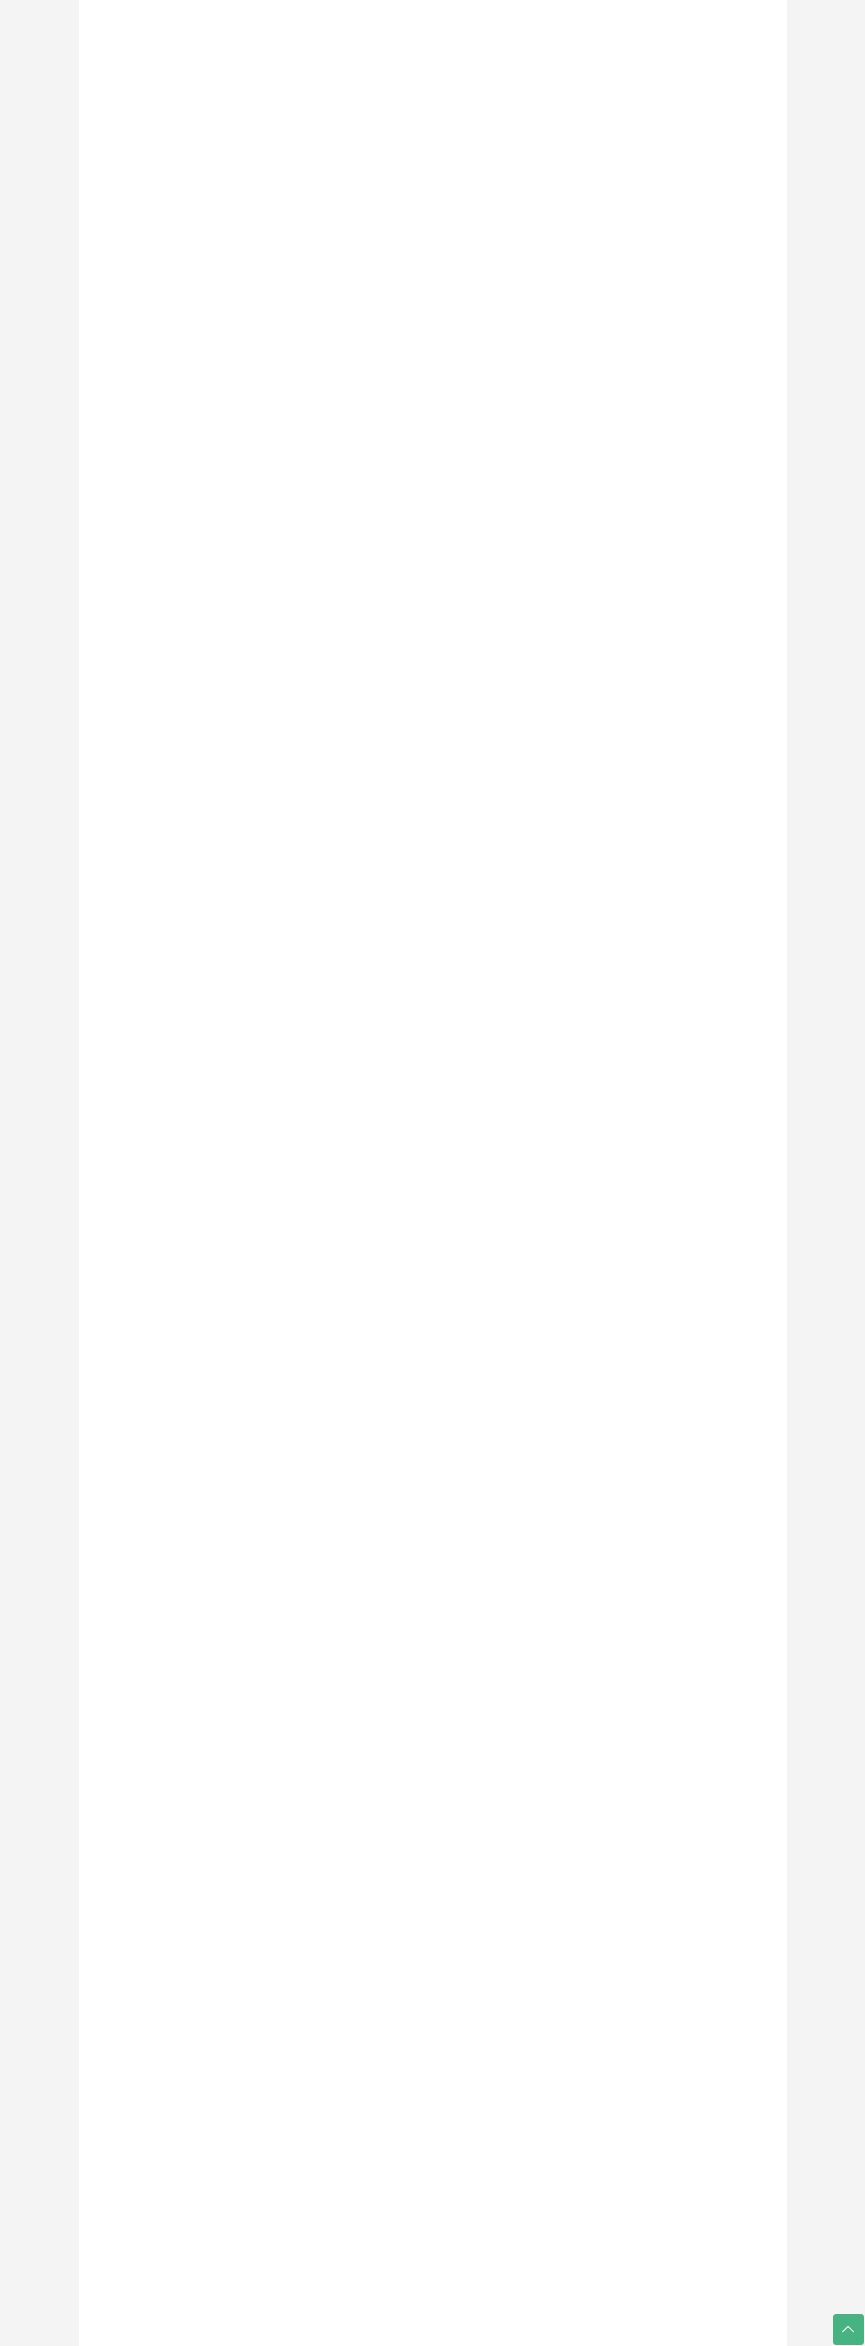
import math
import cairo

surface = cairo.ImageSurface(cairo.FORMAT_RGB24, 865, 2346)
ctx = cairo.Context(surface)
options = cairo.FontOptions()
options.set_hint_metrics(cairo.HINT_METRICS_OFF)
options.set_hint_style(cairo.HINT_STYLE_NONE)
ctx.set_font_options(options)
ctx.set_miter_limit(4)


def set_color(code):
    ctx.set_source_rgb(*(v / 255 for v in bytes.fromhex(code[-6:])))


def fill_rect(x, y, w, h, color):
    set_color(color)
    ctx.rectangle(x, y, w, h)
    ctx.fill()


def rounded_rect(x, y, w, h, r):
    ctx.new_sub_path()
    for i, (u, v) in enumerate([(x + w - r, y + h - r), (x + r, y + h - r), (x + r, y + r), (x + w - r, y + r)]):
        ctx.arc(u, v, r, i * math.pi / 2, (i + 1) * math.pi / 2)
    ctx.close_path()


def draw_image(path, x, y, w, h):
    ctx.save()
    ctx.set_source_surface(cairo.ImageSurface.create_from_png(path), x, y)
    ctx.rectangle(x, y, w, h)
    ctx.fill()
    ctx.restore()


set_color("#f4f4f4")
ctx.paint()
fill_rect(79, 0, 708, 2346, "#ffffff")
set_color("#47b383")
rounded_rect(833, 2314, 31, 31, 3)
ctx.fill()
draw_image("assets/img1.png", 842, 2325, 12, 8)
surface.write_to_png("output.png")
